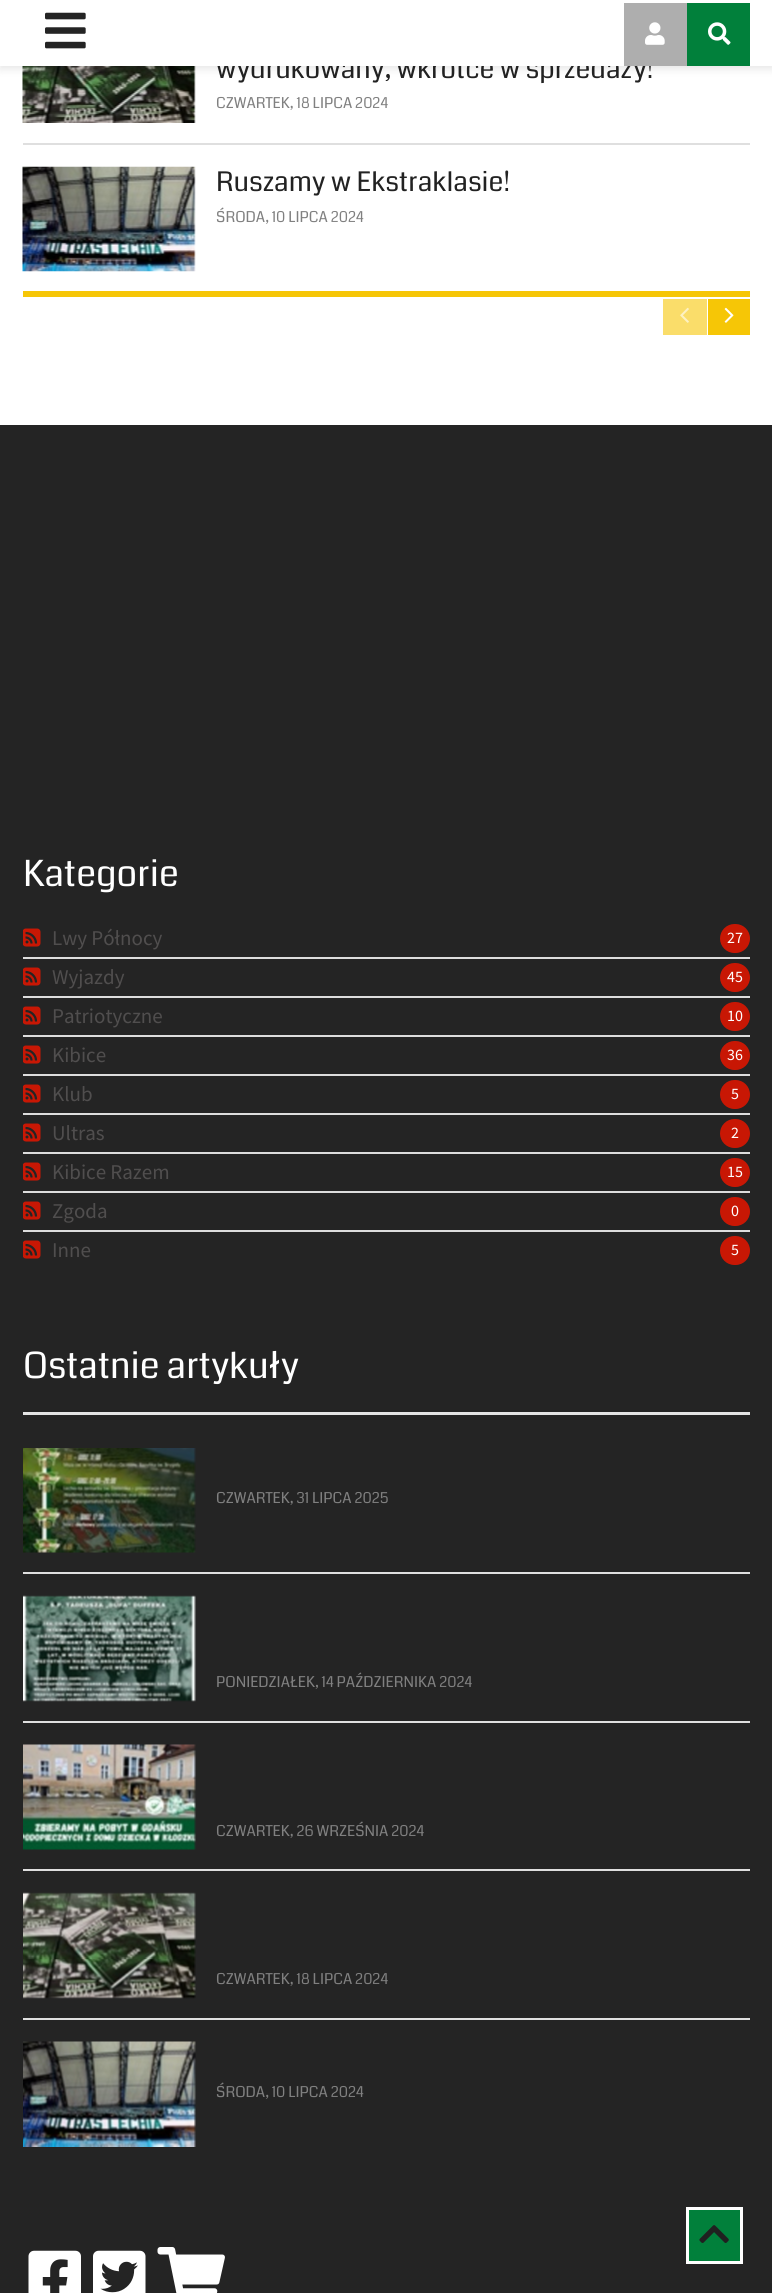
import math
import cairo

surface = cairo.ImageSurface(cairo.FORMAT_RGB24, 772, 2293)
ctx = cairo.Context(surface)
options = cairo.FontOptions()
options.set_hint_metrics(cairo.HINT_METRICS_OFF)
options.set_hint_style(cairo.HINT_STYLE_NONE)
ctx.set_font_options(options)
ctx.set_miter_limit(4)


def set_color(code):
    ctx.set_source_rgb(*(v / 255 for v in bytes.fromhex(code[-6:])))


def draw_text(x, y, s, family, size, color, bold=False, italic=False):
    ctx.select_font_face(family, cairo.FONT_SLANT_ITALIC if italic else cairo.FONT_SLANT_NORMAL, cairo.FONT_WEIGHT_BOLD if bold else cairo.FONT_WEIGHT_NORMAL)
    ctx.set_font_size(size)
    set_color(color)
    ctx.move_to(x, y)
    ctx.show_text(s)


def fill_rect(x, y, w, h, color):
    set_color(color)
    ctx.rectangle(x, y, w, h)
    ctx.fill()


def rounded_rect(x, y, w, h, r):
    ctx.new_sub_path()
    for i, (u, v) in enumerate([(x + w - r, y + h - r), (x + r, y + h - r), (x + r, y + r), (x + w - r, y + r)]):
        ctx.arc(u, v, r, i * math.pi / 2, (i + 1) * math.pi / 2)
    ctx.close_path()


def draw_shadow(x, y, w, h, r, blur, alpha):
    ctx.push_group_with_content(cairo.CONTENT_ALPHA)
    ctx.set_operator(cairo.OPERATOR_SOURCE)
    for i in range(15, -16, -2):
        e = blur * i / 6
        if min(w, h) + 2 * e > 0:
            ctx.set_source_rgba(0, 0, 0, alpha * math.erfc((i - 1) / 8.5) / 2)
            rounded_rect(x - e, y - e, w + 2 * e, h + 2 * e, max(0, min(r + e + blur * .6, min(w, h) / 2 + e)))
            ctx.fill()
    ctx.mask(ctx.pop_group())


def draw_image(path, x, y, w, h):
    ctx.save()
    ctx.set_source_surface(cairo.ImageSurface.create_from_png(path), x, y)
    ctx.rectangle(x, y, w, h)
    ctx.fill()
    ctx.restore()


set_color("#ffffff")
ctx.paint()
draw_image("assets/img4.png", 22, 66, 174, 57)
set_color("#000000")
draw_shadow(0, 3, 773, 66, 0, 4.5, 0.1)
draw_text(216, 78, "wydrukowany, wkrótce w sprzedaży!", "Coda", 27, "#222222")
fill_rect(0, 0, 772, 66, "#ffffff")
draw_image("assets/img1.png", 45, 12, 41, 37)
fill_rect(624, 3, 63, 63, "#aeaeae")
draw_image("assets/img2.png", 645, 22, 20, 23)
fill_rect(687, 3, 63, 63, "#01803b")
draw_image("assets/img3.png", 708, 22, 23, 23)
draw_text(216, 108, "CZWARTEK, 18 LIPCA 2024", "Coda", 15, "#808080")
fill_rect(23, 143, 727, 2, "#dfdfdf")
draw_image("assets/img5.png", 22, 166, 174, 106)
draw_text(216, 191, "Ruszamy w Ekstraklasie!", "Coda", 27, "#222222")
draw_text(216, 222, "ŚRODA, 10 LIPCA 2024", "Coda", 15, "#808080")
fill_rect(23, 291, 727, 6, "#f6c606")
fill_rect(663, 299, 44, 36, "#fadd6a")
draw_image("assets/img6.png", 680, 307, 9, 16)
fill_rect(708, 299, 42, 36, "#f6c606")
draw_image("assets/img7.png", 724, 307, 10, 16)
fill_rect(0, 425, 772, 1868, "#242424")
draw_text(23, 886, "Kategorie", "Coda", 36, "#ffffff")
fill_rect(23, 957, 727, 2, "#dddddd")
draw_image("assets/img8.png", 23, 928, 18, 19)
draw_text(52, 945, "Lwy Północy", "Source Sans Pro", 21, "#504e4e")
set_color("#c81704")
rounded_rect(720, 924, 30, 29, 14.5)
ctx.fill()
draw_text(727, 943, "27", "Source Sans Pro", 16, "#ffffff")
fill_rect(23, 996, 727, 2, "#dddddd")
draw_image("assets/img8.png", 23, 967, 18, 19)
draw_text(52, 984, "Wyjazdy", "Source Sans Pro", 21, "#504e4e")
set_color("#c81704")
rounded_rect(720, 963, 30, 29, 14.5)
ctx.fill()
draw_text(727, 982, "45", "Source Sans Pro", 16, "#ffffff")
fill_rect(23, 1035, 727, 2, "#dddddd")
draw_image("assets/img8.png", 23, 1006, 18, 19)
draw_text(52, 1023, "Patriotyczne", "Source Sans Pro", 21, "#504e4e")
set_color("#c81704")
rounded_rect(720, 1002, 30, 29, 14.5)
ctx.fill()
draw_text(727, 1021, "10", "Source Sans Pro", 16, "#ffffff")
fill_rect(23, 1074, 727, 2, "#dddddd")
draw_image("assets/img8.png", 23, 1045, 18, 19)
draw_text(52, 1062, "Kibice", "Source Sans Pro", 21, "#504e4e")
set_color("#c81704")
rounded_rect(720, 1041, 30, 29, 14.5)
ctx.fill()
draw_text(727, 1060, "36", "Source Sans Pro", 16, "#ffffff")
fill_rect(23, 1113, 727, 2, "#dddddd")
draw_image("assets/img8.png", 23, 1084, 18, 19)
draw_text(52, 1101, "Klub", "Source Sans Pro", 21, "#504e4e")
set_color("#c81704")
rounded_rect(720, 1080, 30, 29, 14.5)
ctx.fill()
draw_text(731, 1099, "5", "Source Sans Pro", 16, "#ffffff")
fill_rect(23, 1152, 727, 2, "#dddddd")
draw_image("assets/img8.png", 23, 1123, 18, 19)
draw_text(52, 1140, "Ultras", "Source Sans Pro", 21, "#504e4e")
set_color("#c81704")
rounded_rect(720, 1119, 30, 29, 14.5)
ctx.fill()
draw_text(731, 1138, "2", "Source Sans Pro", 16, "#ffffff")
fill_rect(23, 1191, 727, 2, "#dddddd")
draw_image("assets/img8.png", 23, 1162, 18, 19)
draw_text(52, 1179, "Kibice Razem", "Source Sans Pro", 21, "#504e4e")
set_color("#c81704")
rounded_rect(720, 1158, 30, 29, 14.5)
ctx.fill()
draw_text(727, 1177, "15", "Source Sans Pro", 16, "#ffffff")
fill_rect(23, 1230, 727, 2, "#dddddd")
draw_image("assets/img8.png", 23, 1201, 18, 19)
draw_text(52, 1218, "Zgoda", "Source Sans Pro", 21, "#504e4e")
set_color("#c81704")
rounded_rect(720, 1197, 30, 29, 14.5)
ctx.fill()
draw_text(731, 1216, "0", "Source Sans Pro", 16, "#ffffff")
draw_image("assets/img8.png", 23, 1240, 18, 19)
draw_text(52, 1257, "Inne", "Source Sans Pro", 21, "#504e4e")
set_color("#c81704")
rounded_rect(720, 1236, 30, 29, 14.5)
ctx.fill()
draw_text(731, 1255, "5", "Source Sans Pro", 16, "#ffffff")
draw_text(23, 1378, "Ostatnie artykuły", "Coda", 36, "#ffffff")
fill_rect(23, 1412, 727, 3, "#e4e4e4")
draw_image("assets/img9.png", 23, 1448, 173, 105)
draw_text(216, 1503, "CZWARTEK, 31 LIPCA 2025", "Coda", 15, "#808080")
fill_rect(23, 1572, 727, 2, "#dfdfdf")
draw_image("assets/img10.png", 23, 1595, 173, 107)
draw_text(216, 1687, "PONIEDZIAŁEK, 14 PAŹDZIERNIKA 2024", "Coda", 15, "#808080")
fill_rect(23, 1721, 727, 2, "#dfdfdf")
draw_image("assets/img11.png", 23, 1744, 173, 106)
draw_text(216, 1836, "CZWARTEK, 26 WRZEŚNIA 2024", "Coda", 15, "#808080")
fill_rect(23, 1869, 727, 2, "#dfdfdf")
draw_image("assets/img12.png", 23, 1892, 173, 107)
draw_text(216, 1984, "CZWARTEK, 18 LIPCA 2024", "Coda", 15, "#808080")
fill_rect(23, 2018, 727, 2, "#dfdfdf")
draw_image("assets/img13.png", 23, 2041, 173, 106)
draw_text(216, 2097, "ŚRODA, 10 LIPCA 2024", "Coda", 15, "#808080")
draw_image("assets/img14.png", 28, 2250, 53, 43)
draw_image("assets/img15.png", 93, 2250, 53, 43)
draw_image("assets/img16.png", 157, 2247, 68, 46)
set_color("#01803b")
ctx.rectangle(687.5, 2208.5, 54, 54)
ctx.fill_preserve()
set_color("#ffffff")
ctx.set_line_width(3)
ctx.stroke()
draw_image("assets/img17.png", 699, 2225, 30, 18)
surface.write_to_png("output.png")
